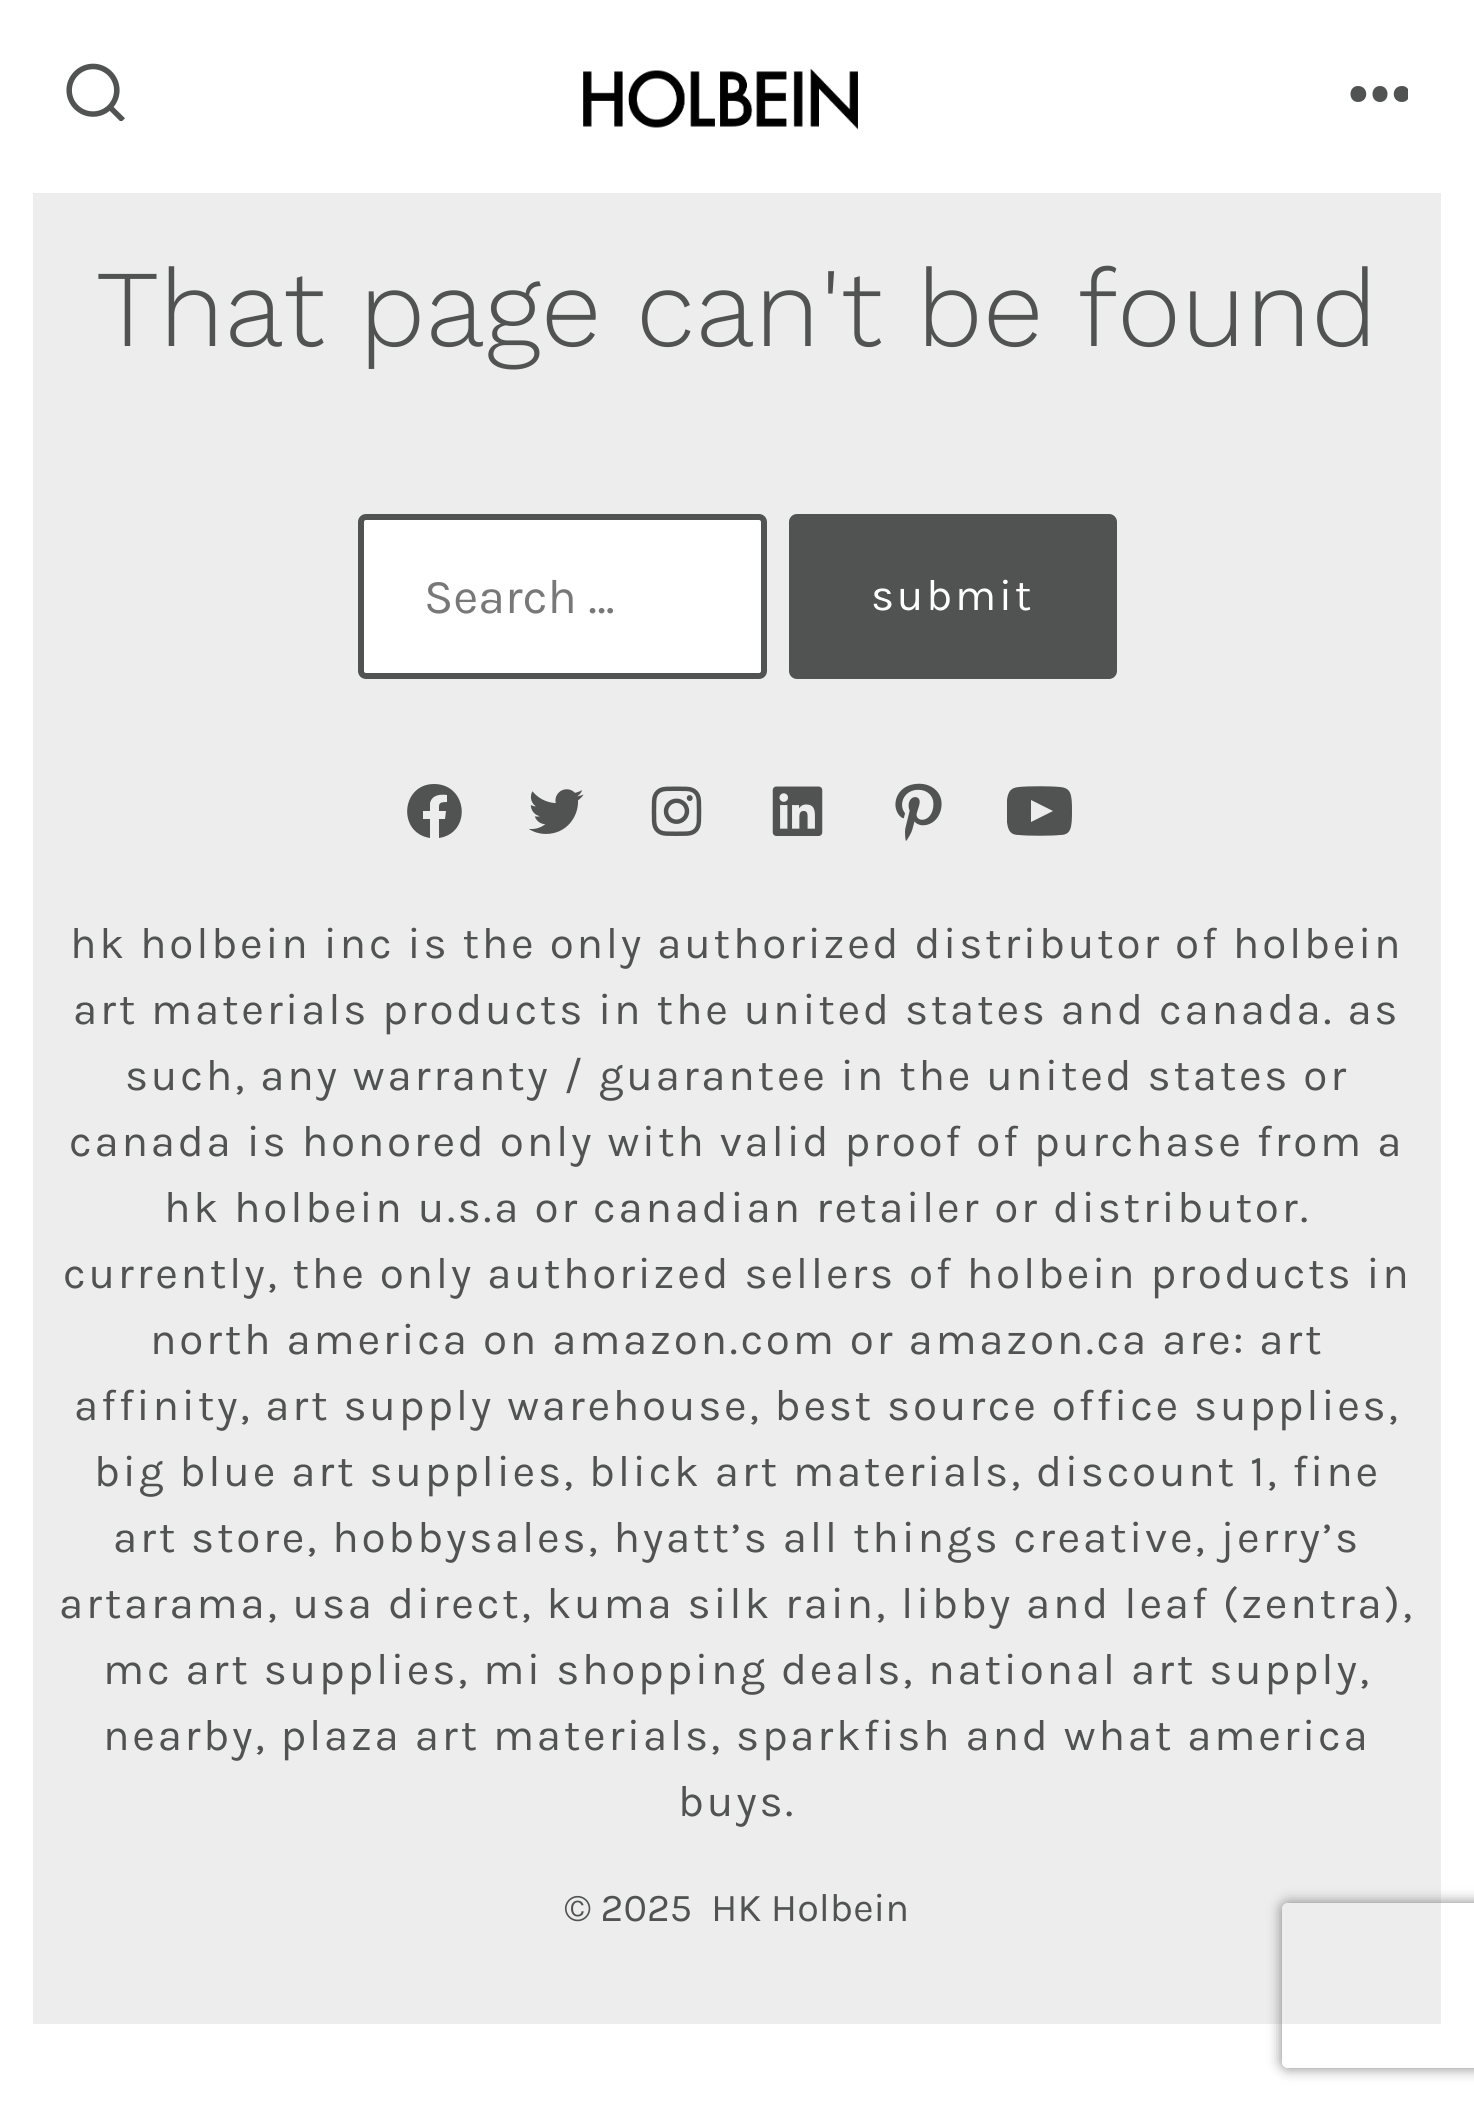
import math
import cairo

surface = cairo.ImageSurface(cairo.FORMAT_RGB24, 1474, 2104)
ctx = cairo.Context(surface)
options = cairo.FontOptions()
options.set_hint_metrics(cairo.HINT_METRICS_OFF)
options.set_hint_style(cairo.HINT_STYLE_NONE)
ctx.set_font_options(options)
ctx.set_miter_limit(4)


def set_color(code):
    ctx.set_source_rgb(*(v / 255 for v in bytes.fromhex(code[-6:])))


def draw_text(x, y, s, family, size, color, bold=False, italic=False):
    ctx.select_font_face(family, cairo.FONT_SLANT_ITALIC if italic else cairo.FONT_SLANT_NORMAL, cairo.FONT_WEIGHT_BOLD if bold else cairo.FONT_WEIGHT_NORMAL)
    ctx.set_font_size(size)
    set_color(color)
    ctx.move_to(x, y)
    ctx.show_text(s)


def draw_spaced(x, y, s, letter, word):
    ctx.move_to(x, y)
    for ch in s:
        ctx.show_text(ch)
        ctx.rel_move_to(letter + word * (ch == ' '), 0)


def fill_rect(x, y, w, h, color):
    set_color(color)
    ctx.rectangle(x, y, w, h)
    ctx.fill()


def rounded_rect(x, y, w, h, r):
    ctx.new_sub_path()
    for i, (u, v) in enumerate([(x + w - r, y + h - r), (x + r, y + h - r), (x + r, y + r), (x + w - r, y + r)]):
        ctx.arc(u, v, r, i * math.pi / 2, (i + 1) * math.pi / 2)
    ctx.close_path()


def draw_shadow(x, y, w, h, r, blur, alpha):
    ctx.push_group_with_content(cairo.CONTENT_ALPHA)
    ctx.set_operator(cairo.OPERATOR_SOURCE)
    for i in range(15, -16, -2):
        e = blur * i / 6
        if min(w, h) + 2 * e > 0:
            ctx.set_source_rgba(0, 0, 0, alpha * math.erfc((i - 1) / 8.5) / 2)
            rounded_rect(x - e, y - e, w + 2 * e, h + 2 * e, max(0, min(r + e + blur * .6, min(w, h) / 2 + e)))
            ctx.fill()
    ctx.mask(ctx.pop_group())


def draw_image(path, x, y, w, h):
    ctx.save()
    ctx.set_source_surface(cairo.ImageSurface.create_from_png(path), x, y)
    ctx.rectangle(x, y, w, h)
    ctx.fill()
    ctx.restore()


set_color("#ffffff")
ctx.paint()
fill_rect(33, 193, 1408, 1831, "#ededed")
draw_image("assets/img1.png", 66, 63, 59, 58)
draw_image("assets/img2.png", 583, 68, 275, 62)
ctx.save()
ctx.rectangle(1350, 63, 58, 58)
ctx.clip()
set_color("#515252")
ctx.new_path()
ctx.move_to(1358, 102)
ctx.curve_to(1348, 102, 1348, 86, 1358, 86)
ctx.curve_to(1369, 86, 1369, 102, 1358, 102)
ctx.close_path()
ctx.move_to(1380, 102)
ctx.curve_to(1370, 102, 1370, 86, 1380, 86)
ctx.curve_to(1390, 86, 1390, 102, 1380, 102)
ctx.close_path()
ctx.move_to(1402, 102)
ctx.curve_to(1391, 102, 1391, 86, 1402, 86)
ctx.curve_to(1412, 86, 1412, 102, 1402, 102)
ctx.close_path()
ctx.fill()
ctx.restore()
draw_text(96, 346, "That page can't be found", "Work Sans Light", 109.25, "#515252")
set_color("#ffffff")
rounded_rect(361, 517, 403, 159, 5)
ctx.fill_preserve()
set_color("#515252")
ctx.set_line_width(6)
ctx.stroke()
draw_text(424, 613, "Search …", "Karla", 48.5, "#787878")
set_color("#515252")
rounded_rect(789, 514, 328, 165, 8)
ctx.fill()
ctx.set_font_size(44)
set_color("#ffffff")
draw_spaced(871, 610, "submit", 2.75, 0)
set_color("#515252")
ctx.new_path()
ctx.move_to(434, 784)
ctx.curve_to(401, 784, 397, 833, 430, 838)
ctx.line_to(430, 819)
ctx.line_to(423, 819)
ctx.line_to(423, 811)
ctx.line_to(430, 811)
ctx.line_to(430, 803)
ctx.curve_to(432, 795, 440, 794, 447, 795)
ctx.line_to(447, 802)
ctx.curve_to(438, 802, 439, 804, 439, 811)
ctx.line_to(446, 811)
ctx.line_to(445, 819)
ctx.line_to(439, 819)
ctx.line_to(439, 838)
ctx.curve_to(472, 833, 468, 784, 434, 784)
ctx.close_path()
ctx.fill()
draw_image("assets/img3.png", 528, 789, 56, 45)
draw_image("assets/img4.png", 651, 786, 51, 50)
draw_image("assets/img5.png", 772, 786, 51, 50)
draw_image("assets/img6.png", 895, 783, 47, 58)
ctx.save()
ctx.rectangle(1007, 778, 66, 66)
ctx.clip()
ctx.new_path()
ctx.move_to(1060, 787)
ctx.curve_to(1051, 786, 1028, 786, 1019, 787)
ctx.curve_to(1008, 788, 1007, 794, 1006, 811)
ctx.curve_to(1007, 828, 1008, 835, 1019, 835)
ctx.curve_to(1028, 836, 1051, 836, 1060, 835)
ctx.curve_to(1071, 835, 1072, 828, 1072, 811)
ctx.curve_to(1072, 794, 1071, 788, 1060, 787)
ctx.close_path()
ctx.move_to(1031, 822)
ctx.line_to(1031, 800)
ctx.line_to(1053, 811)
ctx.close_path()
ctx.fill()
ctx.restore()
draw_spaced(70, 958, "hk holbein inc is the only authorized distributor of holbein", 2.75, 0)
draw_spaced(73, 1024, "art materials products in the united states and canada. as", 2.75, 0)
draw_spaced(125, 1090, "such, any warranty / guarantee in the united states or", 2.75, 0)
draw_spaced(69, 1156, "canada is honored only with valid proof of purchase from a", 2.75, 0)
draw_spaced(164, 1222, "hk holbein u.s.a or canadian retailer or distributor.", 2.75, 0)
draw_spaced(63, 1288, "currently, the only authorized sellers of holbein products in", 2.75, 0)
draw_spaced(150, 1354, "north america on amazon.com or amazon.ca are: art", 2.75, 0)
draw_spaced(74, 1420, "affinity, art supply warehouse, best source office supplies,", 2.75, 0)
draw_spaced(94, 1486, "big blue art supplies, blick art materials, discount 1, fine", 2.75, 0)
draw_spaced(113, 1552, "art store, hobbysales, hyatt’s all things creative, jerry’s", 2.75, 0)
draw_spaced(59, 1618, "artarama, usa direct, kuma silk rain, libby and leaf (zentra),", 2.75, 0)
draw_spaced(103, 1684, "mc art supplies, mi shopping deals, national art supply,", 2.75, 0)
draw_spaced(103, 1750, "nearby, plaza art materials, sparkfish and what america", 2.75, 0)
draw_spaced(678, 1816, "buys.", 2.75, 0)
draw_text(564, 1921, "© 2025", "Karla", 39.5, "#515252")
draw_text(711, 1921, "HK Holbein", "Karla", 39.5, "#515252")
ctx.save()
ctx.set_fill_rule(cairo.FILL_RULE_EVEN_ODD)
ctx.new_path()
ctx.move_to(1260, 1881)
ctx.line_to(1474, 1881)
ctx.line_to(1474, 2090)
ctx.line_to(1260, 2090)
ctx.close_path()
ctx.move_to(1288, 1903)
ctx.line_to(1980, 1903)
ctx.curve_to(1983.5, 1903, 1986, 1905.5, 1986, 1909)
ctx.line_to(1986, 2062)
ctx.curve_to(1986, 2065.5, 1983.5, 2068, 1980, 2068)
ctx.line_to(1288, 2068)
ctx.curve_to(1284.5, 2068, 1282, 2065.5, 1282, 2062)
ctx.line_to(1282, 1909)
ctx.curve_to(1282, 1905.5, 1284.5, 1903, 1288, 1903)
ctx.close_path()
ctx.clip()
set_color("#808080")
draw_shadow(1282, 1903, 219, 165, 6, 7, 1)
ctx.restore()
surface.write_to_png("output.png")
